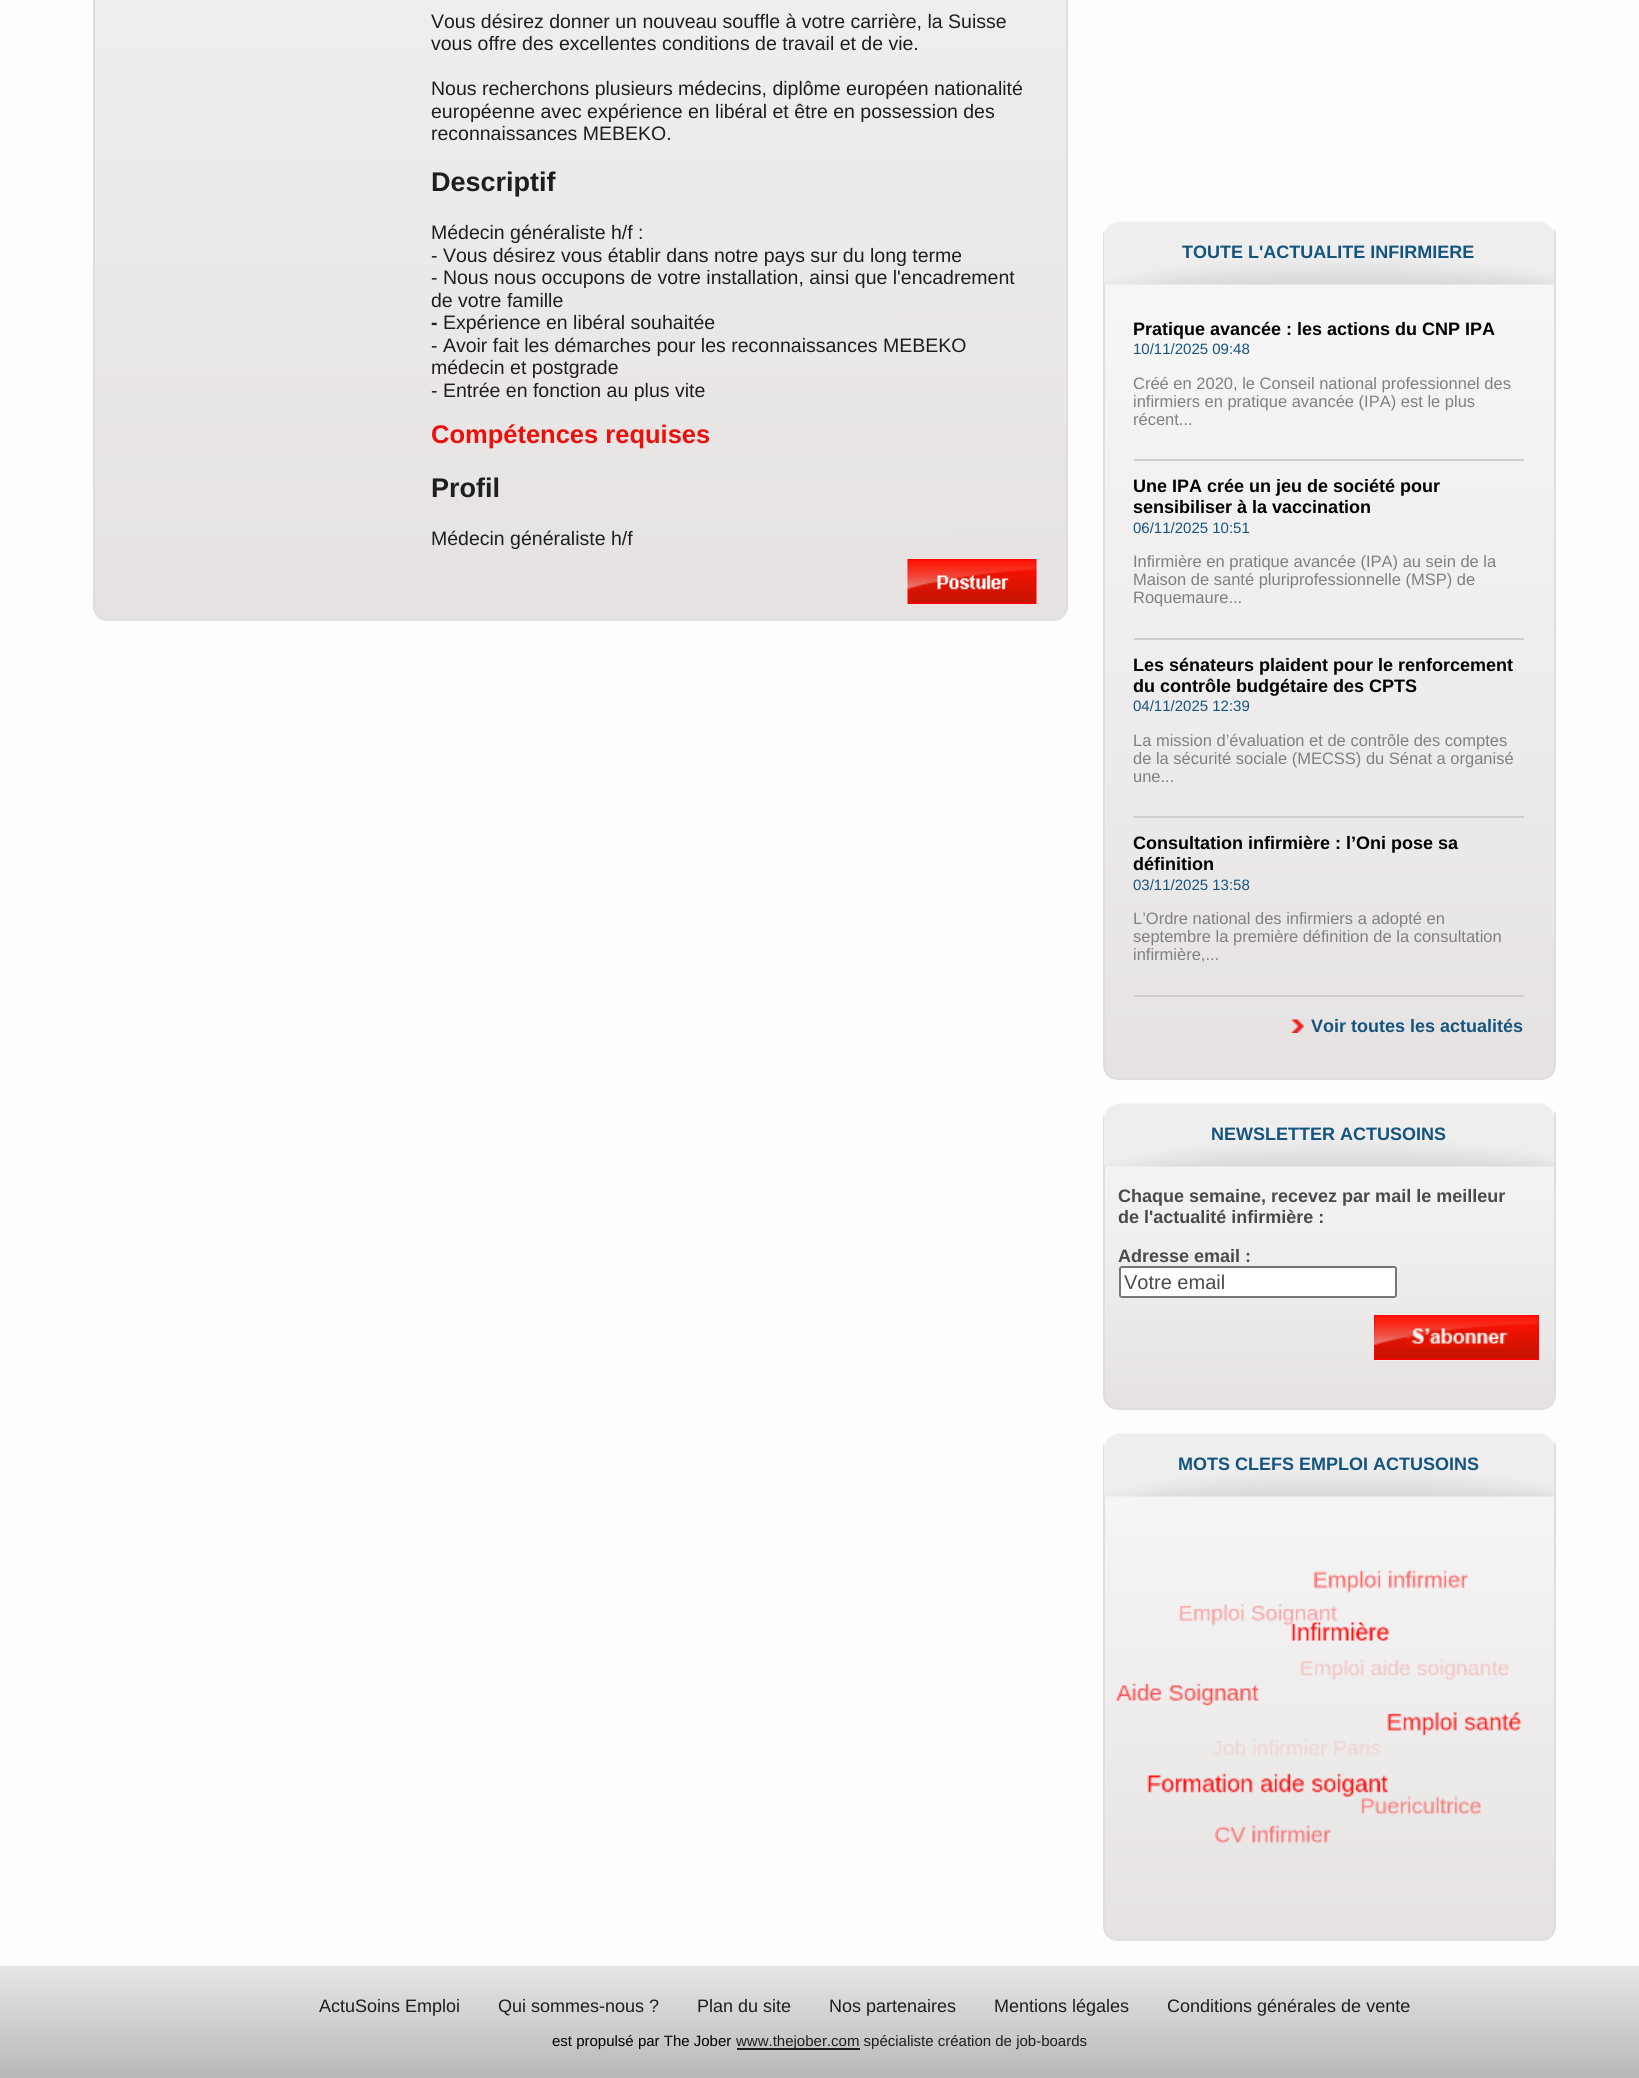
import math
import cairo

surface = cairo.ImageSurface(cairo.FORMAT_RGB24, 1639, 2078)
ctx = cairo.Context(surface)
options = cairo.FontOptions()
options.set_hint_metrics(cairo.HINT_METRICS_OFF)
options.set_hint_style(cairo.HINT_STYLE_NONE)
ctx.set_font_options(options)
ctx.set_miter_limit(4)


def set_color(code):
    ctx.set_source_rgb(*(v / 255 for v in bytes.fromhex(code[-6:])))


def draw_text(x, y, s, family, size, color, bold=False, italic=False):
    ctx.select_font_face(family, cairo.FONT_SLANT_ITALIC if italic else cairo.FONT_SLANT_NORMAL, cairo.FONT_WEIGHT_BOLD if bold else cairo.FONT_WEIGHT_NORMAL)
    ctx.set_font_size(size)
    set_color(color)
    ctx.move_to(x, y)
    ctx.show_text(s)


def fill_rect(x, y, w, h, color):
    set_color(color)
    ctx.rectangle(x, y, w, h)
    ctx.fill()


def rounded_rect(x, y, w, h, r):
    ctx.new_sub_path()
    for i, (u, v) in enumerate([(x + w - r, y + h - r), (x + r, y + h - r), (x + r, y + r), (x + w - r, y + r)]):
        ctx.arc(u, v, r, i * math.pi / 2, (i + 1) * math.pi / 2)
    ctx.close_path()


def draw_image(path, x, y, w, h):
    ctx.save()
    ctx.set_source_surface(cairo.ImageSurface.create_from_png(path), x, y)
    ctx.rectangle(x, y, w, h)
    ctx.fill()
    ctx.restore()


set_color("#fdfdfd")
ctx.paint()
ctx.save()
rounded_rect(93, -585, 975, 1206, 15)
ctx.clip()
gradient = cairo.LinearGradient(580, -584, 581, 620)
gradient.add_color_stop_rgba(0, 0.973, 0.973, 0.973, 1)
gradient.add_color_stop_rgba(1, 0.902, 0.886, 0.886, 1)
ctx.set_source(gradient)
ctx.rectangle(93, 0, 975, 620)
ctx.fill()
ctx.restore()
rounded_rect(94, -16, 973, 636, 14)
set_color("#dedede")
ctx.stroke()
draw_text(431, 28, "Vous désirez donner un nouveau souffle à votre carrière, la Suisse", "Liberation Sans", 19.5, "#1e1e1e")
draw_text(431, 50, "vous offre des excellentes conditions de travail et de vie.", "Liberation Sans", 19.5, "#1e1e1e")
draw_text(431, 95, "Nous recherchons plusieurs médecins, diplôme européen nationalité", "Liberation Sans", 19.5, "#1e1e1e")
draw_text(431, 118, "européenne avec expérience en libéral et être en possession des", "Liberation Sans", 19.5, "#1e1e1e")
draw_text(431, 140, "reconnaissances MEBEKO.", "Liberation Sans", 19.5, "#1e1e1e")
draw_text(431, 191, "Descriptif", "Liberation Sans", 27, "#1e1e1e", bold=True)
draw_text(431, 239, "Médecin généraliste h/f :", "Liberation Sans", 19.5, "#1e1e1e")
draw_text(431, 262, "- Vous désirez vous établir dans notre pays sur du long terme", "Liberation Sans", 19.5, "#1e1e1e")
draw_text(431, 284, "- Nous nous occupons de votre installation, ainsi que l'encadrement", "Liberation Sans", 19.5, "#1e1e1e")
draw_text(431, 307, "de votre famille", "Liberation Sans", 19.5, "#1e1e1e")
draw_text(431, 329, "-", "Liberation Sans", 19.5, "#1e1e1e", bold=True)
draw_text(443, 329, "Expérience en libéral souhaitée", "Liberation Sans", 19.5, "#1e1e1e")
draw_text(431, 352, "- Avoir fait les démarches pour les reconnaissances MEBEKO", "Liberation Sans", 19.5, "#1e1e1e")
draw_text(431, 374, "médecin et postgrade", "Liberation Sans", 19.5, "#1e1e1e")
draw_text(431, 397, "- Entrée en fonction au plus vite", "Liberation Sans", 19.5, "#1e1e1e")
draw_text(431, 443, "Compétences requises", "Liberation Sans", 25.5, "#ea110a", bold=True)
draw_text(431, 497, "Profil", "Liberation Sans", 27, "#1e1e1e", bold=True)
draw_text(431, 545, "Médecin généraliste h/f", "Liberation Sans", 19.5, "#1e1e1e")
draw_image("assets/img1.png", 907, 559, 130, 45)
ctx.save()
rounded_rect(1103, 221, 453, 859, 15)
ctx.clip()
gradient = cairo.LinearGradient(1329, 222, 1329, 1079)
gradient.add_color_stop_rgba(0, 0.973, 0.973, 0.973, 1)
gradient.add_color_stop_rgba(1, 0.902, 0.886, 0.886, 1)
ctx.set_source(gradient)
ctx.rectangle(1104, 284, 450, 795)
ctx.fill()
ctx.restore()
rounded_rect(1104, 222, 451, 857, 14)
set_color("#dedede")
ctx.stroke()
draw_image("assets/img2.png", 1104, 221, 450, 64)
draw_text(1182, 258, "TOUTE L'ACTUALITE INFIRMIERE", "Liberation Sans", 18, "#14547f", bold=True)
fill_rect(1134, 459, 390, 2, "#cecece")
draw_text(1133, 335, "Pratique avancée : les actions du CNP IPA", "Liberation Sans", 18, "#000000", bold=True)
draw_text(1133, 354, "10/11/2025 09:48", "Liberation Sans", 15, "#14547f")
draw_text(1133, 389, "Créé en 2020, le Conseil national professionnel des", "Liberation Sans", 16.5, "#808080")
draw_text(1133, 407, "infirmiers en pratique avancée (IPA) est le plus", "Liberation Sans", 16.5, "#808080")
draw_text(1133, 425, "récent...", "Liberation Sans", 16.5, "#808080")
fill_rect(1134, 638, 390, 2, "#cecece")
draw_text(1133, 492, "Une IPA crée un jeu de société pour", "Liberation Sans", 18, "#000000", bold=True)
draw_text(1133, 513, "sensibiliser à la vaccination", "Liberation Sans", 18, "#000000", bold=True)
draw_text(1133, 533, "06/11/2025 10:51", "Liberation Sans", 15, "#14547f")
draw_text(1133, 567, "Infirmière en pratique avancée (IPA) au sein de la", "Liberation Sans", 16.5, "#808080")
draw_text(1133, 585, "Maison de santé pluriprofessionnelle (MSP) de", "Liberation Sans", 16.5, "#808080")
draw_text(1133, 603, "Roquemaure...", "Liberation Sans", 16.5, "#808080")
fill_rect(1134, 816, 390, 2, "#cecece")
draw_text(1133, 671, "Les sénateurs plaident pour le renforcement", "Liberation Sans", 18, "#000000", bold=True)
draw_text(1133, 692, "du contrôle budgétaire des CPTS", "Liberation Sans", 18, "#000000", bold=True)
draw_text(1133, 711, "04/11/2025 12:39", "Liberation Sans", 15, "#14547f")
draw_text(1133, 746, "La mission d’évaluation et de contrôle des comptes", "Liberation Sans", 16.5, "#808080")
draw_text(1133, 764, "de la sécurité sociale (MECSS) du Sénat a organisé", "Liberation Sans", 16.5, "#808080")
draw_text(1133, 782, "une...", "Liberation Sans", 16.5, "#808080")
fill_rect(1134, 995, 390, 2, "#cecece")
draw_text(1133, 849, "Consultation infirmière : l’Oni pose sa", "Liberation Sans", 18, "#000000", bold=True)
draw_text(1133, 870, "définition", "Liberation Sans", 18, "#000000", bold=True)
draw_text(1133, 890, "03/11/2025 13:58", "Liberation Sans", 15, "#14547f")
draw_text(1133, 924, "L’Ordre national des infirmiers a adopté en", "Liberation Sans", 16.5, "#808080")
draw_text(1133, 942, "septembre la première définition de la consultation", "Liberation Sans", 16.5, "#808080")
draw_text(1133, 960, "infirmière,...", "Liberation Sans", 16.5, "#808080")
draw_image("assets/img3.png", 1291, 1019, 14, 14)
draw_text(1311, 1032, "Voir toutes les actualités", "Liberation Sans", 18, "#14547f", bold=True)
ctx.save()
rounded_rect(1103, 1103, 453, 307, 15)
ctx.clip()
gradient = cairo.LinearGradient(1329, 1104, 1329, 1409)
gradient.add_color_stop_rgba(0, 0.973, 0.973, 0.973, 1)
gradient.add_color_stop_rgba(1, 0.902, 0.886, 0.886, 1)
ctx.set_source(gradient)
ctx.rectangle(1104, 1166, 450, 243)
ctx.fill()
ctx.restore()
rounded_rect(1104, 1104, 451, 305, 14)
set_color("#dedede")
ctx.stroke()
draw_image("assets/img4.png", 1104, 1103, 450, 64)
draw_text(1211, 1140, "NEWSLETTER ACTUSOINS", "Liberation Sans", 18, "#14547f", bold=True)
draw_text(1118, 1202, "Chaque semaine, recevez par mail le meilleur", "Liberation Sans", 18, "#4a4a4a", bold=True)
draw_text(1118, 1223, "de l'actualité infirmière :", "Liberation Sans", 18, "#4a4a4a", bold=True)
draw_text(1118, 1262, "Adresse email :", "Liberation Sans", 18, "#4a4a4a", bold=True)
set_color("#ffffff")
rounded_rect(1120, 1267, 276, 30, 2)
ctx.fill_preserve()
set_color("#767676")
ctx.stroke()
draw_text(1124, 1289, "Votre email", "Liberation Sans", 20, "#4a4a4a")
fill_rect(1374, 1360, 165, 1, "#efefef")
draw_image("assets/img5.png", 1374, 1315, 165, 45)
ctx.save()
rounded_rect(1103, 1433, 453, 508, 15)
ctx.clip()
gradient = cairo.LinearGradient(1329, 1434, 1329, 1940)
gradient.add_color_stop_rgba(0, 0.973, 0.973, 0.973, 1)
gradient.add_color_stop_rgba(1, 0.902, 0.886, 0.886, 1)
ctx.set_source(gradient)
ctx.rectangle(1104, 1496, 450, 444)
ctx.fill()
ctx.restore()
rounded_rect(1104, 1434, 451, 506, 14)
set_color("#dedede")
ctx.stroke()
draw_image("assets/img6.png", 1104, 1433, 450, 64)
draw_text(1178, 1470, "MOTS CLEFS EMPLOI ACTUSOINS", "Liberation Sans", 18, "#14547f", bold=True)
draw_image("assets/img7.png", 1115, 1569, 407, 275)
gradient = cairo.LinearGradient(820, 1965, 820, 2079)
gradient.add_color_stop_rgba(0, 0.902, 0.902, 0.902, 1)
gradient.add_color_stop_rgba(1, 0.722, 0.722, 0.722, 1)
ctx.set_source(gradient)
ctx.rectangle(0, 1966, 1639, 112)
ctx.fill()
draw_text(319, 2012, "ActuSoins Emploi", "Liberation Sans", 18, "#1e1e1e")
draw_text(498, 2012, "Qui sommes-nous ?", "Liberation Sans", 18, "#1e1e1e")
draw_text(697, 2012, "Plan du site", "Liberation Sans", 18, "#1e1e1e")
draw_text(829, 2012, "Nos partenaires", "Liberation Sans", 18, "#1e1e1e")
draw_text(994, 2012, "Mentions légales", "Liberation Sans", 18, "#1e1e1e")
draw_text(1167, 2012, "Conditions générales de vente", "Liberation Sans", 18, "#1e1e1e")
draw_text(552, 2046, "est propulsé par The Jober", "Liberation Sans", 15, "#000000")
fill_rect(737, 2048, 123, 2, "#1e1e1e")
draw_text(736, 2046, "www.thejober.com spécialiste création de job-boards", "Liberation Sans", 15, "#1e1e1e")
surface.write_to_png("output.png")
